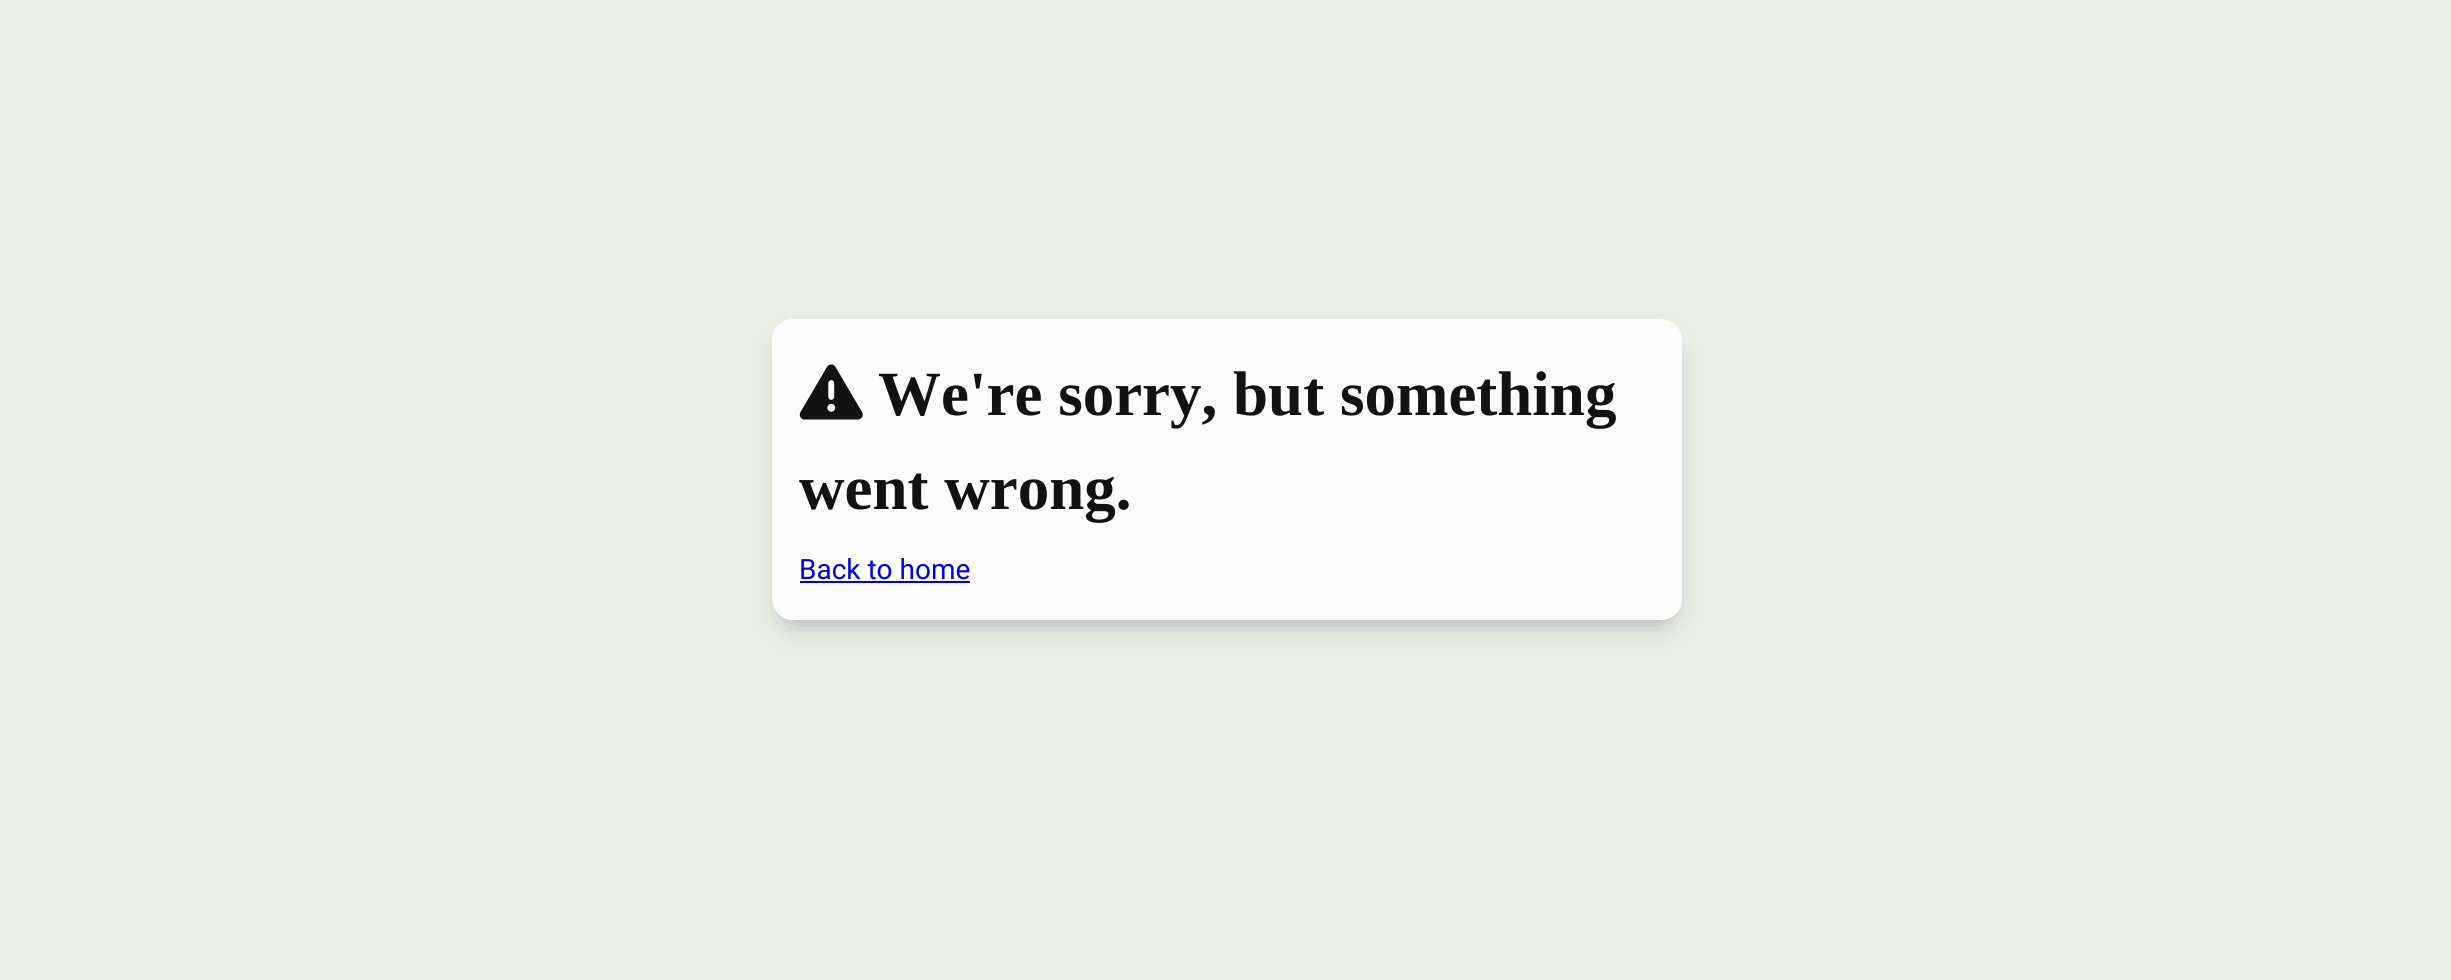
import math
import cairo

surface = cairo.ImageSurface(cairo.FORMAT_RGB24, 2451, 980)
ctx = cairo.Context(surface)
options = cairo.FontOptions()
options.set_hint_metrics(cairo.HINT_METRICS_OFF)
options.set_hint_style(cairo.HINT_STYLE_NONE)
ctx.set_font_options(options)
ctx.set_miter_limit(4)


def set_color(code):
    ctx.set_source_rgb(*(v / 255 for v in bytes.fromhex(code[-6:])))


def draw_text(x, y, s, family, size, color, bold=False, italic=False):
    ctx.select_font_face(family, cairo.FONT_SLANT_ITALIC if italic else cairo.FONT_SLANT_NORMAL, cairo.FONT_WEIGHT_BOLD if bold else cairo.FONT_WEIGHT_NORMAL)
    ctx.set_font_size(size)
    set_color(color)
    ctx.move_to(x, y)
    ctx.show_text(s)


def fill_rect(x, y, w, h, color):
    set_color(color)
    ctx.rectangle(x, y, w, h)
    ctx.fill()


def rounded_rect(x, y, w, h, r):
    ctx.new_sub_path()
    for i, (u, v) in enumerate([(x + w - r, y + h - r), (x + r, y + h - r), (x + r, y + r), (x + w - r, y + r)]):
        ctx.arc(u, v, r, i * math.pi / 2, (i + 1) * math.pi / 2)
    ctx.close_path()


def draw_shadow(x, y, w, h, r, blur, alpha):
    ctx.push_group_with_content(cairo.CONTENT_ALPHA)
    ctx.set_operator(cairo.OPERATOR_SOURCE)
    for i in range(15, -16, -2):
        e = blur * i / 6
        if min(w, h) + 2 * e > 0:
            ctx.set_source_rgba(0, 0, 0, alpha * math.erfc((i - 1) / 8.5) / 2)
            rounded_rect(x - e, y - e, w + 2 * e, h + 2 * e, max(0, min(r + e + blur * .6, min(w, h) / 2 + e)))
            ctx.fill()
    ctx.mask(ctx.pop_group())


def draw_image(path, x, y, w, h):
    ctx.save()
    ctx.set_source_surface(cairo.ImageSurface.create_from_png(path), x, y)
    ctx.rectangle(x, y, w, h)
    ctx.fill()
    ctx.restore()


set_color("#ebefe3")
ctx.paint()
set_color("#17264a")
draw_shadow(786, 347, 882, 273, 7, 14, 0.4)
set_color("#fcfcfc")
rounded_rect(772, 319, 910, 301, 21)
ctx.fill()
draw_image("assets/img1.png", 799, 364, 64, 56)
draw_text(878, 415, "We're sorry, but something", "Liberation Serif", 63, "#121212", bold=True)
draw_text(799, 509, "went wrong.", "Liberation Serif", 63, "#121212", bold=True)
draw_text(799, 579, "Back to home", "Roboto", 28, "#0000ee")
fill_rect(800, 581, 170, 2, "#0000ee")
surface.write_to_png("output.png")
